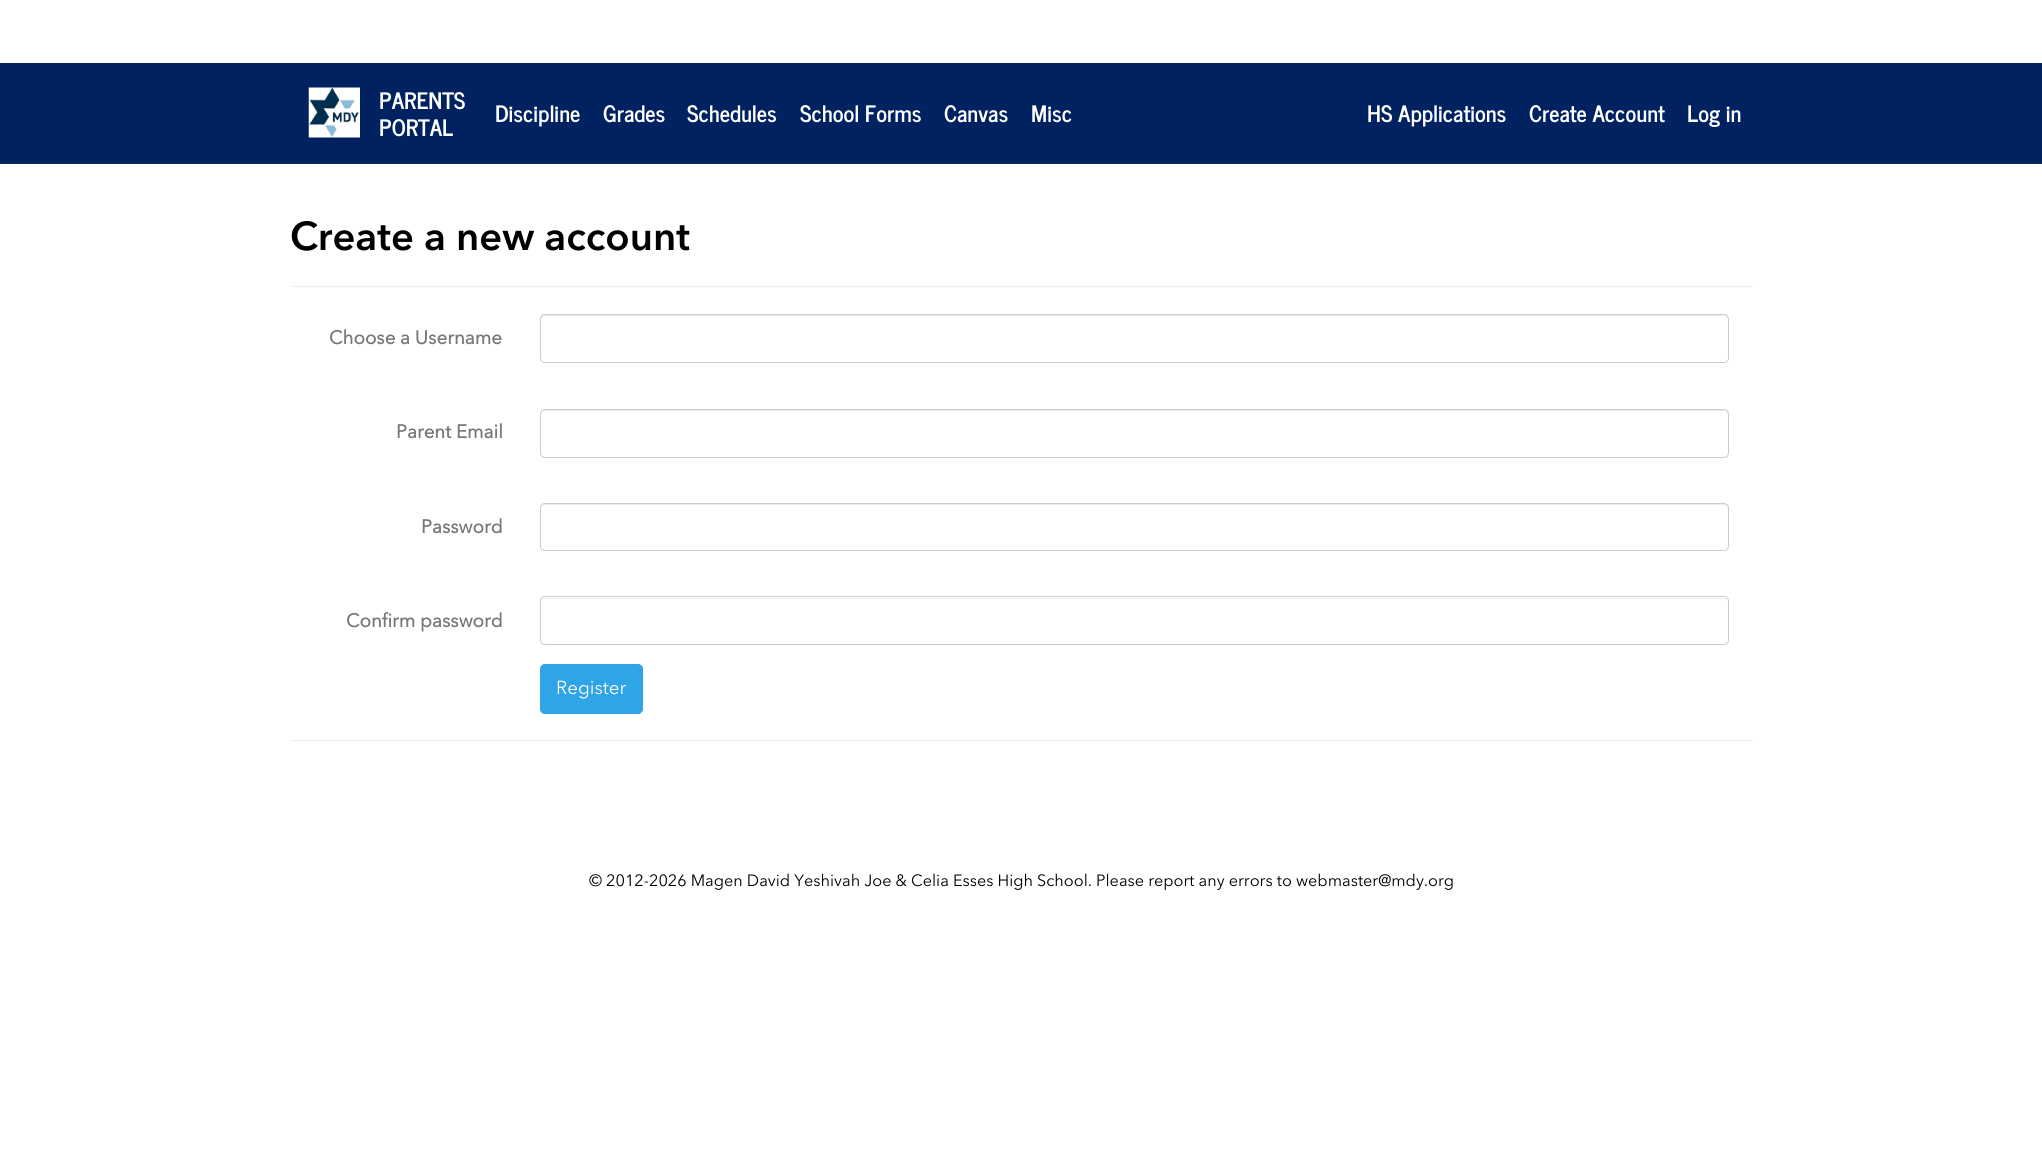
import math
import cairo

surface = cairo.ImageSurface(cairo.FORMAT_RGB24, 2042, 1153)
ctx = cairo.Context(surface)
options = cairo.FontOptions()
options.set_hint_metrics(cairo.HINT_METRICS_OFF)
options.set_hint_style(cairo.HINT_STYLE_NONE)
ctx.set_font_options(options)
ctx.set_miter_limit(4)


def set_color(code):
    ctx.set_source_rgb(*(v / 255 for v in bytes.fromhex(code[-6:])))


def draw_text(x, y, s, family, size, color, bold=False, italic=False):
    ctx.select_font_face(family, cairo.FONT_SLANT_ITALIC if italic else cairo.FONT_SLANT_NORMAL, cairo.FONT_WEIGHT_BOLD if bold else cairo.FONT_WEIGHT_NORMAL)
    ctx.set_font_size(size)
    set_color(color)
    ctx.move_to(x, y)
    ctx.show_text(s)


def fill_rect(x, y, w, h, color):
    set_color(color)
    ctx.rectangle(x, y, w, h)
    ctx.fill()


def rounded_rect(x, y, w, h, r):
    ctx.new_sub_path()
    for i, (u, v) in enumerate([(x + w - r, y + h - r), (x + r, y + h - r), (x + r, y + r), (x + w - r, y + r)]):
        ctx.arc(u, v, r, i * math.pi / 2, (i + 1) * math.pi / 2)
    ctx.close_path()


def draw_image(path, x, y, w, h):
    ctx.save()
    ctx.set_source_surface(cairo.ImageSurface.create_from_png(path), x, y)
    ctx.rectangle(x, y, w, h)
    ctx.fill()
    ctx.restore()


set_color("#ffffff")
ctx.paint()
fill_rect(0, 63, 2042, 100, "#002261")
fill_rect(0, 163, 2042, 1, "#022f5a")
draw_image("assets/img1.png", 308, 87, 52, 51)
draw_text(379, 109, "PARENTS", "News Cycle", 22.5, "#ffffff", bold=True)
draw_text(379, 136, "PORTAL", "News Cycle", 22.5, "#ffffff", bold=True)
draw_text(495, 122, "Discipline", "News Cycle", 22.5, "#ffffff", bold=True)
draw_text(603, 122, "Grades", "News Cycle", 22.5, "#ffffff", bold=True)
draw_text(687, 122, "Schedules", "News Cycle", 22.5, "#ffffff", bold=True)
draw_text(800, 122, "School Forms", "News Cycle", 22.5, "#ffffff", bold=True)
draw_text(944, 122, "Canvas", "News Cycle", 22.5, "#ffffff", bold=True)
draw_text(1031, 122, "Misc", "News Cycle", 22.5, "#ffffff", bold=True)
draw_text(1367, 122, "HS Applications", "News Cycle", 22.5, "#ffffff", bold=True)
draw_text(1529, 122, "Create Account", "News Cycle", 22.5, "#ffffff", bold=True)
draw_text(1687, 122, "Log in", "News Cycle", 22.5, "#ffffff", bold=True)
draw_text(290, 250, "Create a new account", "Avenir Next SemiBold", 40, "#000000")
fill_rect(290, 286, 1463, 1, "#eeeeee")
draw_text(329, 344, "Choose a Username", "Avenir Next", 18.75, "#777777", bold=True)
set_color("#ececec")
ctx.new_path()
ctx.move_to(545, 316)
ctx.line_to(1724, 316)
ctx.curve_to(1726, 316, 1728, 318, 1728, 320)
ctx.curve_to(1728, 317, 1727, 315, 1724, 315)
ctx.line_to(545, 315)
ctx.curve_to(542, 315, 541, 317, 541, 320)
ctx.curve_to(541, 318, 543, 316, 545, 316)
ctx.close_path()
ctx.fill()
rounded_rect(540.5, 314.5, 1188, 48, 4.5)
set_color("#cccccc")
ctx.set_line_width(1)
ctx.stroke()
draw_text(396, 438, "Parent Email", "Avenir Next", 18.75, "#777777", bold=True)
set_color("#ececec")
ctx.new_path()
ctx.move_to(545, 411)
ctx.line_to(1724, 411)
ctx.curve_to(1726, 411, 1728, 413, 1728, 415)
ctx.curve_to(1728, 412, 1727, 410, 1724, 410)
ctx.line_to(545, 410)
ctx.curve_to(542, 410, 541, 412, 541, 415)
ctx.curve_to(541, 413, 543, 411, 545, 411)
ctx.close_path()
ctx.fill()
rounded_rect(540.5, 409.5, 1188, 48, 4.5)
set_color("#cccccc")
ctx.stroke()
draw_text(421, 533, "Password", "Avenir Next", 18.75, "#777777", bold=True)
set_color("#ececec")
ctx.new_path()
ctx.move_to(545, 505)
ctx.line_to(1724, 505)
ctx.curve_to(1726, 505, 1728, 507, 1728, 509)
ctx.curve_to(1728, 506, 1727, 504, 1724, 504)
ctx.line_to(545, 504)
ctx.curve_to(542, 504, 541, 506, 541, 509)
ctx.curve_to(541, 507, 543, 505, 545, 505)
ctx.close_path()
ctx.fill()
rounded_rect(540.5, 503.5, 1188, 47, 4.5)
set_color("#cccccc")
ctx.stroke()
draw_text(346, 627, "Confirm password", "Avenir Next", 18.75, "#777777", bold=True)
set_color("#ececec")
ctx.new_path()
ctx.move_to(545, 599)
ctx.line_to(1724, 599)
ctx.curve_to(1726, 599, 1728, 600, 1728, 602)
ctx.curve_to(1728, 600, 1726, 598, 1724, 598)
ctx.line_to(545, 598)
ctx.curve_to(543, 598, 541, 600, 541, 602)
ctx.curve_to(541, 600, 543, 599, 545, 599)
ctx.close_path()
ctx.fill()
rounded_rect(540.5, 596.5, 1188, 48, 4.5)
set_color("#cccccc")
ctx.stroke()
set_color("#2fa4e7")
rounded_rect(540.5, 664.5, 102, 49, 4.5)
ctx.fill_preserve()
ctx.stroke()
draw_text(556, 694, "Register", "Avenir Next", 18.75, "#ffffff")
fill_rect(290, 740, 1463, 1, "#eeeeee")
draw_text(589, 886, "© 2012-2026 Magen David Yeshivah Joe & Celia Esses High School. Please report any errors to webmaster@mdy.org", "Avenir Next", 16.25, "#000000")
surface.write_to_png("output.png")
